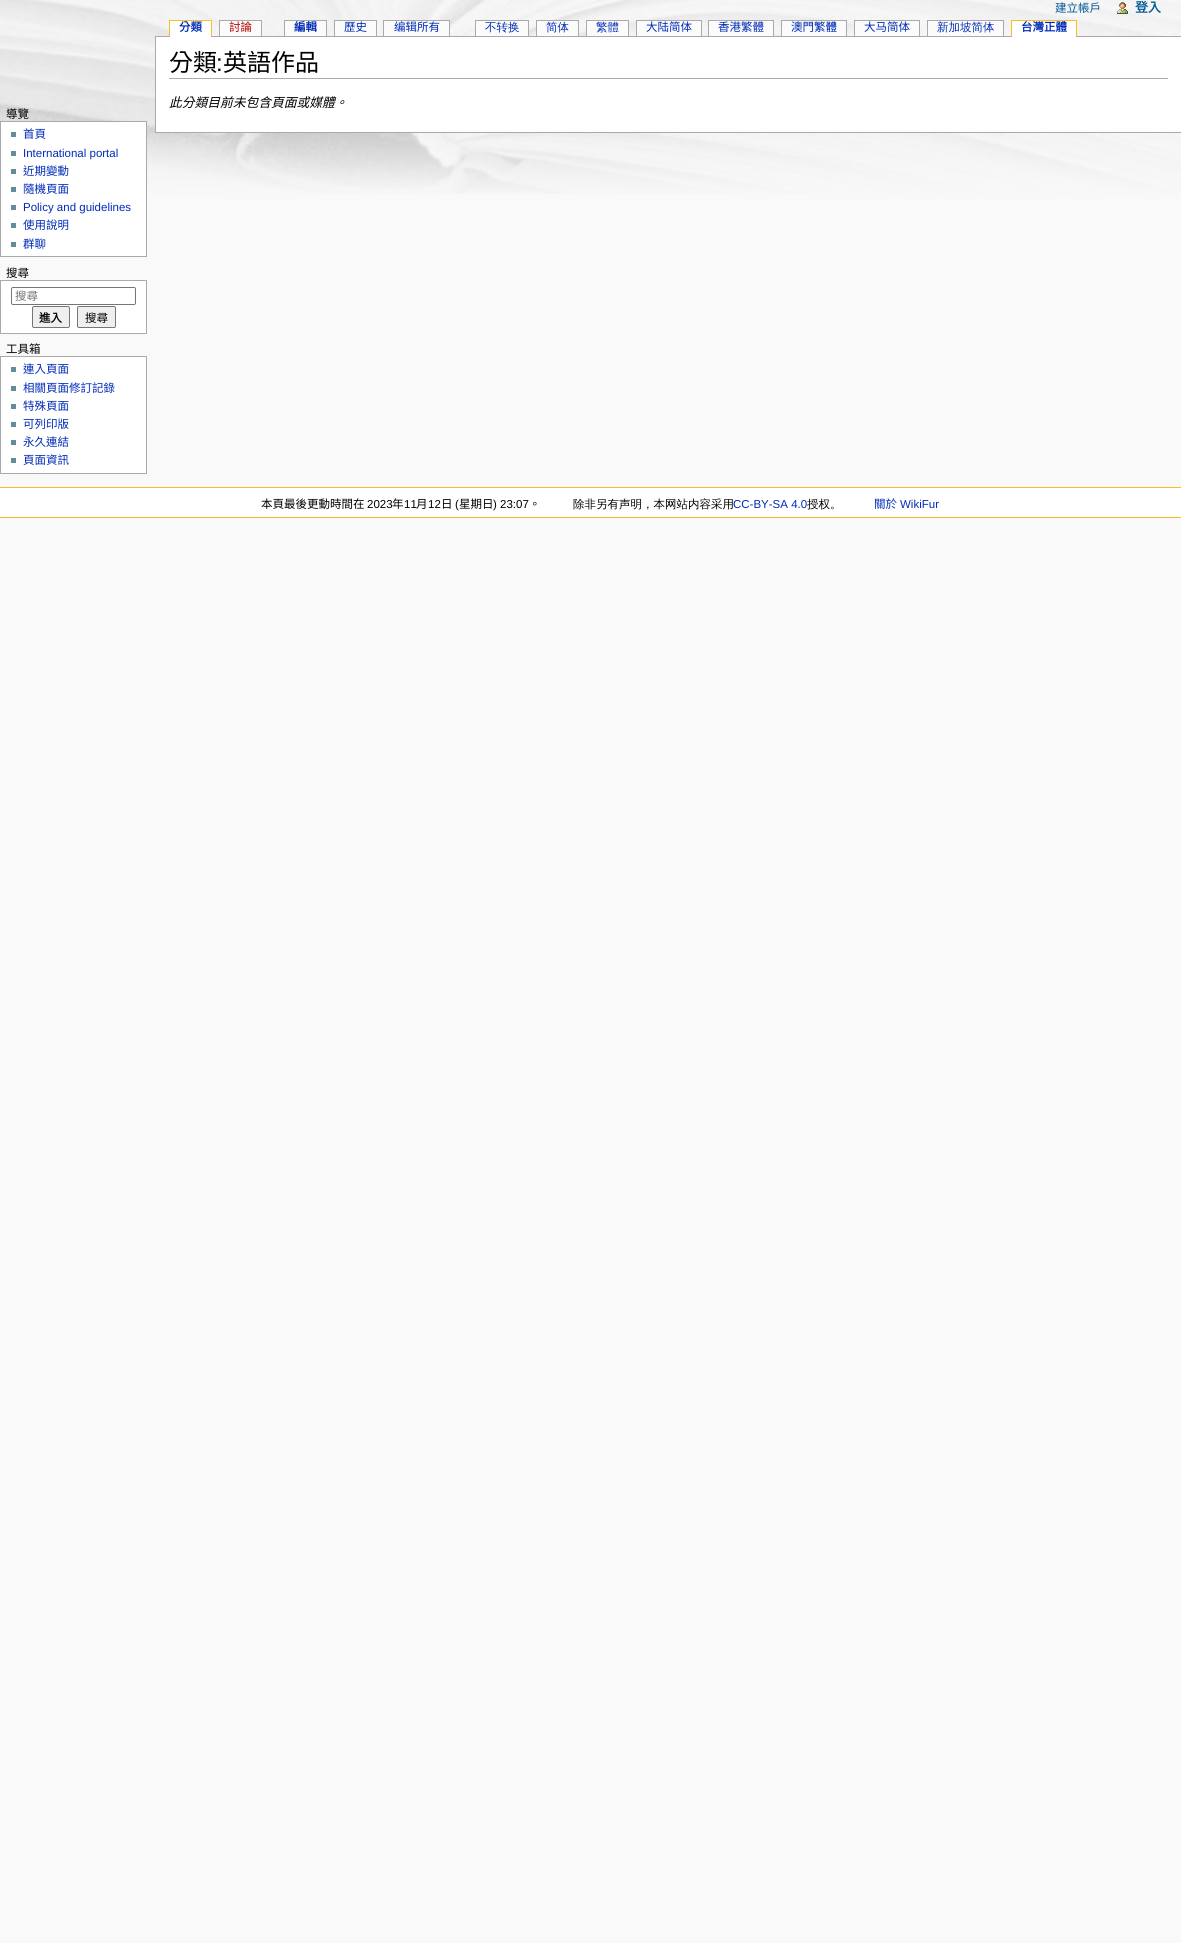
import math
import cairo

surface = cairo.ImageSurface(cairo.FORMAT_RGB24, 1181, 1943)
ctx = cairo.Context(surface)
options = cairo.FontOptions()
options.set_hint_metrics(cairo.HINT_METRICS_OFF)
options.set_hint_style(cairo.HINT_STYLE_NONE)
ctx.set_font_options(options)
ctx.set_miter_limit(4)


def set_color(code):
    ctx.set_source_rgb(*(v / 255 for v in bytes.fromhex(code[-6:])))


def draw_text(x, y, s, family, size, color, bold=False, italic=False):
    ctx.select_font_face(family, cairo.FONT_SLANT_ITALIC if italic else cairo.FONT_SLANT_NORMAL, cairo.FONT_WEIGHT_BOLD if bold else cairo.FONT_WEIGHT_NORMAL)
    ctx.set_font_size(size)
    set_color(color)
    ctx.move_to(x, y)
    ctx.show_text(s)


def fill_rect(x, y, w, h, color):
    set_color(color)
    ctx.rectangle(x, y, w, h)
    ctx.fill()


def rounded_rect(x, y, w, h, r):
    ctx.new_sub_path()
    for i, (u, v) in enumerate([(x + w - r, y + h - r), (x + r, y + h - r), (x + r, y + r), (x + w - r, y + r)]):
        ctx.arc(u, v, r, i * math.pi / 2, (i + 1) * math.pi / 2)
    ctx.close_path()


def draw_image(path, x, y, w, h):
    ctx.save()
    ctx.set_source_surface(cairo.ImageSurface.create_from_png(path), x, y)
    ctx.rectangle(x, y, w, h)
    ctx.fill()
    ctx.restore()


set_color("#f9f9f9")
ctx.paint()
draw_image("assets/img1.png", 0, 0, 1181, 194)
draw_text(1055, 12, "建立帳戶", "Noto Sans CJK TC", 11.5, "#005896")
draw_image("assets/img2.png", 1117, 2, 11, 12)
draw_text(1135, 12, "登入", "Noto Sans CJK TC", 13, "#005896", bold=True)
fill_rect(155, 36, 1026, 1, "#aaaaaa")
fill_rect(170, 21, 41, 16, "#ffffff")
draw_text(179, 31, "分類", "Noto Sans CJK TC", 11.5, "#002bb8", bold=True)
fill_rect(169, 20, 43, 1, "#fabd23")
fill_rect(211, 20, 1, 16, "#fabd23")
fill_rect(169, 20, 1, 16, "#fabd23")
fill_rect(220, 21, 41, 15, "#fbfbfb")
draw_text(229, 31, "討論", "Noto Sans CJK TC", 11.5, "#ba0000")
fill_rect(219, 20, 43, 1, "#aaaaaa")
fill_rect(261, 20, 1, 16, "#aaaaaa")
fill_rect(219, 20, 1, 16, "#aaaaaa")
fill_rect(285, 21, 41, 15, "#fbfbfb")
draw_text(294, 31, "編輯", "Noto Sans CJK TC", 11.5, "#002bb8", bold=True)
fill_rect(284, 20, 43, 1, "#aaaaaa")
fill_rect(326, 20, 1, 16, "#aaaaaa")
fill_rect(284, 20, 1, 16, "#aaaaaa")
fill_rect(335, 21, 41, 15, "#fbfbfb")
draw_text(344, 31, "歷史", "Noto Sans CJK TC", 11.5, "#002bb8")
fill_rect(334, 20, 43, 1, "#aaaaaa")
fill_rect(376, 20, 1, 16, "#aaaaaa")
fill_rect(334, 20, 1, 16, "#aaaaaa")
fill_rect(384, 21, 65, 15, "#fbfbfb")
draw_text(394, 31, "编辑所有", "Noto Sans CJK TC", 11.5, "#002bb8")
fill_rect(383, 20, 67, 1, "#aaaaaa")
fill_rect(449, 20, 1, 16, "#aaaaaa")
fill_rect(383, 20, 1, 16, "#aaaaaa")
fill_rect(476, 21, 52, 15, "#fbfbfb")
draw_text(485, 31, "不转换", "WenQuanYi Zen Hei Medium", 11.5, "#002bb8")
fill_rect(475, 20, 54, 1, "#aaaaaa")
fill_rect(528, 20, 1, 16, "#aaaaaa")
fill_rect(475, 20, 1, 16, "#aaaaaa")
fill_rect(537, 21, 41, 15, "#fbfbfb")
draw_text(546, 31, "简体", "WenQuanYi Zen Hei Medium", 11.5, "#002bb8")
fill_rect(536, 20, 43, 1, "#aaaaaa")
fill_rect(578, 20, 1, 16, "#aaaaaa")
fill_rect(536, 20, 1, 16, "#aaaaaa")
fill_rect(587, 21, 41, 15, "#fbfbfb")
draw_text(596, 31, "繁體", "WenQuanYi Zen Hei Medium", 11.5, "#002bb8")
fill_rect(586, 20, 43, 1, "#aaaaaa")
fill_rect(628, 20, 1, 16, "#aaaaaa")
fill_rect(586, 20, 1, 16, "#aaaaaa")
fill_rect(637, 21, 64, 15, "#fbfbfb")
draw_text(646, 31, "大陆简体", "Noto Sans CJK SC", 11.5, "#002bb8")
fill_rect(636, 20, 66, 1, "#aaaaaa")
fill_rect(701, 20, 1, 16, "#aaaaaa")
fill_rect(636, 20, 1, 16, "#aaaaaa")
fill_rect(709, 21, 64, 15, "#fbfbfb")
draw_text(718, 31, "香港繁體", "Noto Sans CJK HK", 11.5, "#002bb8")
fill_rect(708, 20, 66, 1, "#aaaaaa")
fill_rect(773, 20, 1, 16, "#aaaaaa")
fill_rect(708, 20, 1, 16, "#aaaaaa")
fill_rect(782, 21, 64, 15, "#fbfbfb")
draw_text(791, 31, "澳門繁體", "Chiron Hei HK", 11.5, "#002bb8")
fill_rect(781, 20, 66, 1, "#aaaaaa")
fill_rect(846, 20, 1, 16, "#aaaaaa")
fill_rect(781, 20, 1, 16, "#aaaaaa")
fill_rect(855, 21, 64, 15, "#fbfbfb")
draw_text(864, 31, "大马简体", "Noto Sans CJK SC", 11.5, "#002bb8")
fill_rect(854, 20, 66, 1, "#aaaaaa")
fill_rect(919, 20, 1, 16, "#aaaaaa")
fill_rect(854, 20, 1, 16, "#aaaaaa")
fill_rect(928, 21, 75, 15, "#fbfbfb")
draw_text(937, 31, "新加坡简体", "WenQuanYi Zen Hei Medium", 11.5, "#002bb8")
fill_rect(927, 20, 77, 1, "#aaaaaa")
fill_rect(1003, 20, 1, 16, "#aaaaaa")
fill_rect(927, 20, 1, 16, "#aaaaaa")
fill_rect(1012, 21, 64, 16, "#ffffff")
draw_text(1021, 31, "台灣正體", "Noto Sans CJK TC", 11.5, "#002bb8", bold=True)
fill_rect(1011, 20, 66, 1, "#fabd23")
fill_rect(1076, 20, 1, 16, "#fabd23")
fill_rect(1011, 20, 1, 16, "#fabd23")
draw_text(6, 118, "導覽", "Noto Sans CJK TC", 11.5, "#000000")
set_color("#ffffff")
ctx.rectangle(0.5, 121.5, 146, 135)
ctx.fill_preserve()
set_color("#aaaaaa")
ctx.set_line_width(1)
ctx.stroke()
fill_rect(11, 132, 5, 5, "#638c9c")
draw_text(23, 138, "首頁", "Noto Sans CJK TC", 11.5, "#002bb8")
fill_rect(11, 151, 5, 5, "#638c9c")
draw_text(23, 157, "International portal", "Liberation Sans", 11.5, "#002bb8")
fill_rect(11, 169, 5, 5, "#638c9c")
draw_text(23, 175, "近期變動", "Noto Sans CJK TC", 11.5, "#002bb8")
fill_rect(11, 187, 5, 5, "#638c9c")
draw_text(23, 193, "隨機頁面", "Noto Sans CJK TC", 11.5, "#002bb8")
fill_rect(11, 205, 5, 5, "#638c9c")
draw_text(23, 211, "Policy and guidelines", "Liberation Sans", 11.5, "#002bb8")
fill_rect(11, 223, 5, 5, "#638c9c")
draw_text(23, 229, "使用說明", "Noto Sans CJK TC", 11.5, "#002bb8")
fill_rect(11, 242, 5, 5, "#638c9c")
draw_text(23, 248, "群聊", "Noto Sans CJK TC", 11.5, "#002bb8")
draw_text(6, 277, "搜尋", "Noto Sans CJK TC", 11.5, "#000000")
set_color("#ffffff")
ctx.rectangle(0.5, 280.5, 146, 53)
ctx.fill_preserve()
set_color("#aaaaaa")
ctx.stroke()
rounded_rect(11.5, 287.5, 124, 17, 1.5)
set_color("#767676")
ctx.stroke()
draw_text(15, 300, "搜尋", "Noto Sans CJK TC", 11.5, "#757575")
set_color("#efefef")
rounded_rect(32.5, 306.5, 37, 21, 1.5)
ctx.fill_preserve()
set_color("#767676")
ctx.stroke()
draw_text(39, 322, "進入", "Noto Sans CJK TC", 11.5, "#000000", bold=True)
set_color("#efefef")
rounded_rect(77.5, 306.5, 38, 21, 1.5)
ctx.fill_preserve()
set_color("#767676")
ctx.stroke()
draw_text(85, 322, "搜尋", "Noto Sans CJK TC", 11.5, "#000000")
draw_text(6, 353, "工具箱", "Noto Sans CJK TC", 11.5, "#000000")
set_color("#ffffff")
ctx.rectangle(0.5, 356.5, 146, 117)
ctx.fill_preserve()
set_color("#aaaaaa")
ctx.stroke()
fill_rect(11, 367, 5, 5, "#638c9c")
draw_text(23, 373, "連入頁面", "Noto Sans CJK TC", 11.5, "#002bb8")
fill_rect(11, 386, 5, 5, "#638c9c")
draw_text(23, 392, "相關頁面修訂記錄", "Noto Sans CJK TC", 11.5, "#002bb8")
fill_rect(11, 404, 5, 5, "#638c9c")
draw_text(23, 410, "特殊頁面", "Noto Sans CJK TC", 11.5, "#002bb8")
fill_rect(11, 422, 5, 5, "#638c9c")
draw_text(23, 428, "可列印版", "Noto Sans CJK TC", 11.5, "#002bb8")
fill_rect(11, 440, 5, 5, "#638c9c")
draw_text(23, 446, "永久連結", "Noto Sans CJK TC", 11.5, "#002bb8")
fill_rect(11, 458, 5, 5, "#638c9c")
draw_text(23, 464, "頁面資訊", "Noto Sans CJK TC", 11.5, "#002bb8")
fill_rect(156, 37, 1025, 95, "#ffffff")
fill_rect(155, 132, 1026, 1, "#aaaaaa")
fill_rect(155, 36, 1, 97, "#aaaaaa")
fill_rect(169, 78, 999, 1, "#aaaaaa")
draw_text(169, 71, "分類", "Noto Sans CJK TC", 24, "#000000")
draw_text(216, 71, ":", "Liberation Sans", 24, "#000000")
draw_text(223, 71, "英語作品", "Noto Sans CJK TC", 24, "#000000")
draw_text(169, 107, "此分類目前未包含頁面或媒體。", "Noto Sans CJK TC", 12.75, "#000000", italic=True)
fill_rect(0, 488, 1181, 29, "#ffffff")
fill_rect(0, 487, 1181, 1, "#fabd23")
fill_rect(0, 517, 1181, 1, "#fabd23")
draw_text(261, 508, "本頁最後更動時間在", "Noto Sans CJK TC", 11.5, "#000000")
draw_text(367, 508, "2023", "Liberation Sans", 11.5, "#000000")
draw_text(392, 508, "年", "Noto Sans CJK TC", 11.5, "#000000")
draw_text(404, 508, "11", "Liberation Sans", 11.5, "#000000")
draw_text(416, 508, "月", "Noto Sans CJK TC", 11.5, "#000000")
draw_text(428, 508, "12", "Liberation Sans", 11.5, "#000000")
draw_text(441, 508, "日", "Noto Sans CJK TC", 11.5, "#000000")
draw_text(455, 508, "(", "Liberation Sans", 11.5, "#000000")
draw_text(459, 508, "星期日", "Noto Sans CJK TC", 11.5, "#000000")
draw_text(493, 508, ") 23:07", "Liberation Sans", 11.5, "#000000")
draw_text(529, 508, "。", "Noto Sans CJK TC", 11.5, "#000000")
draw_text(573, 508, "除非另有声明，本网站内容采用", "WenQuanYi Zen Hei Medium", 11.5, "#000000")
draw_text(733, 508, "CC-BY-SA 4.0", "Liberation Sans", 11.5, "#002bb8")
draw_text(807, 508, "授权。", "WenQuanYi Zen Hei Medium", 11.5, "#000000")
draw_text(874, 508, "關於", "Noto Sans CJK TC", 11.5, "#002bb8")
draw_text(900, 508, "WikiFur", "Liberation Sans", 11.5, "#002bb8")
surface.write_to_png("output.png")
